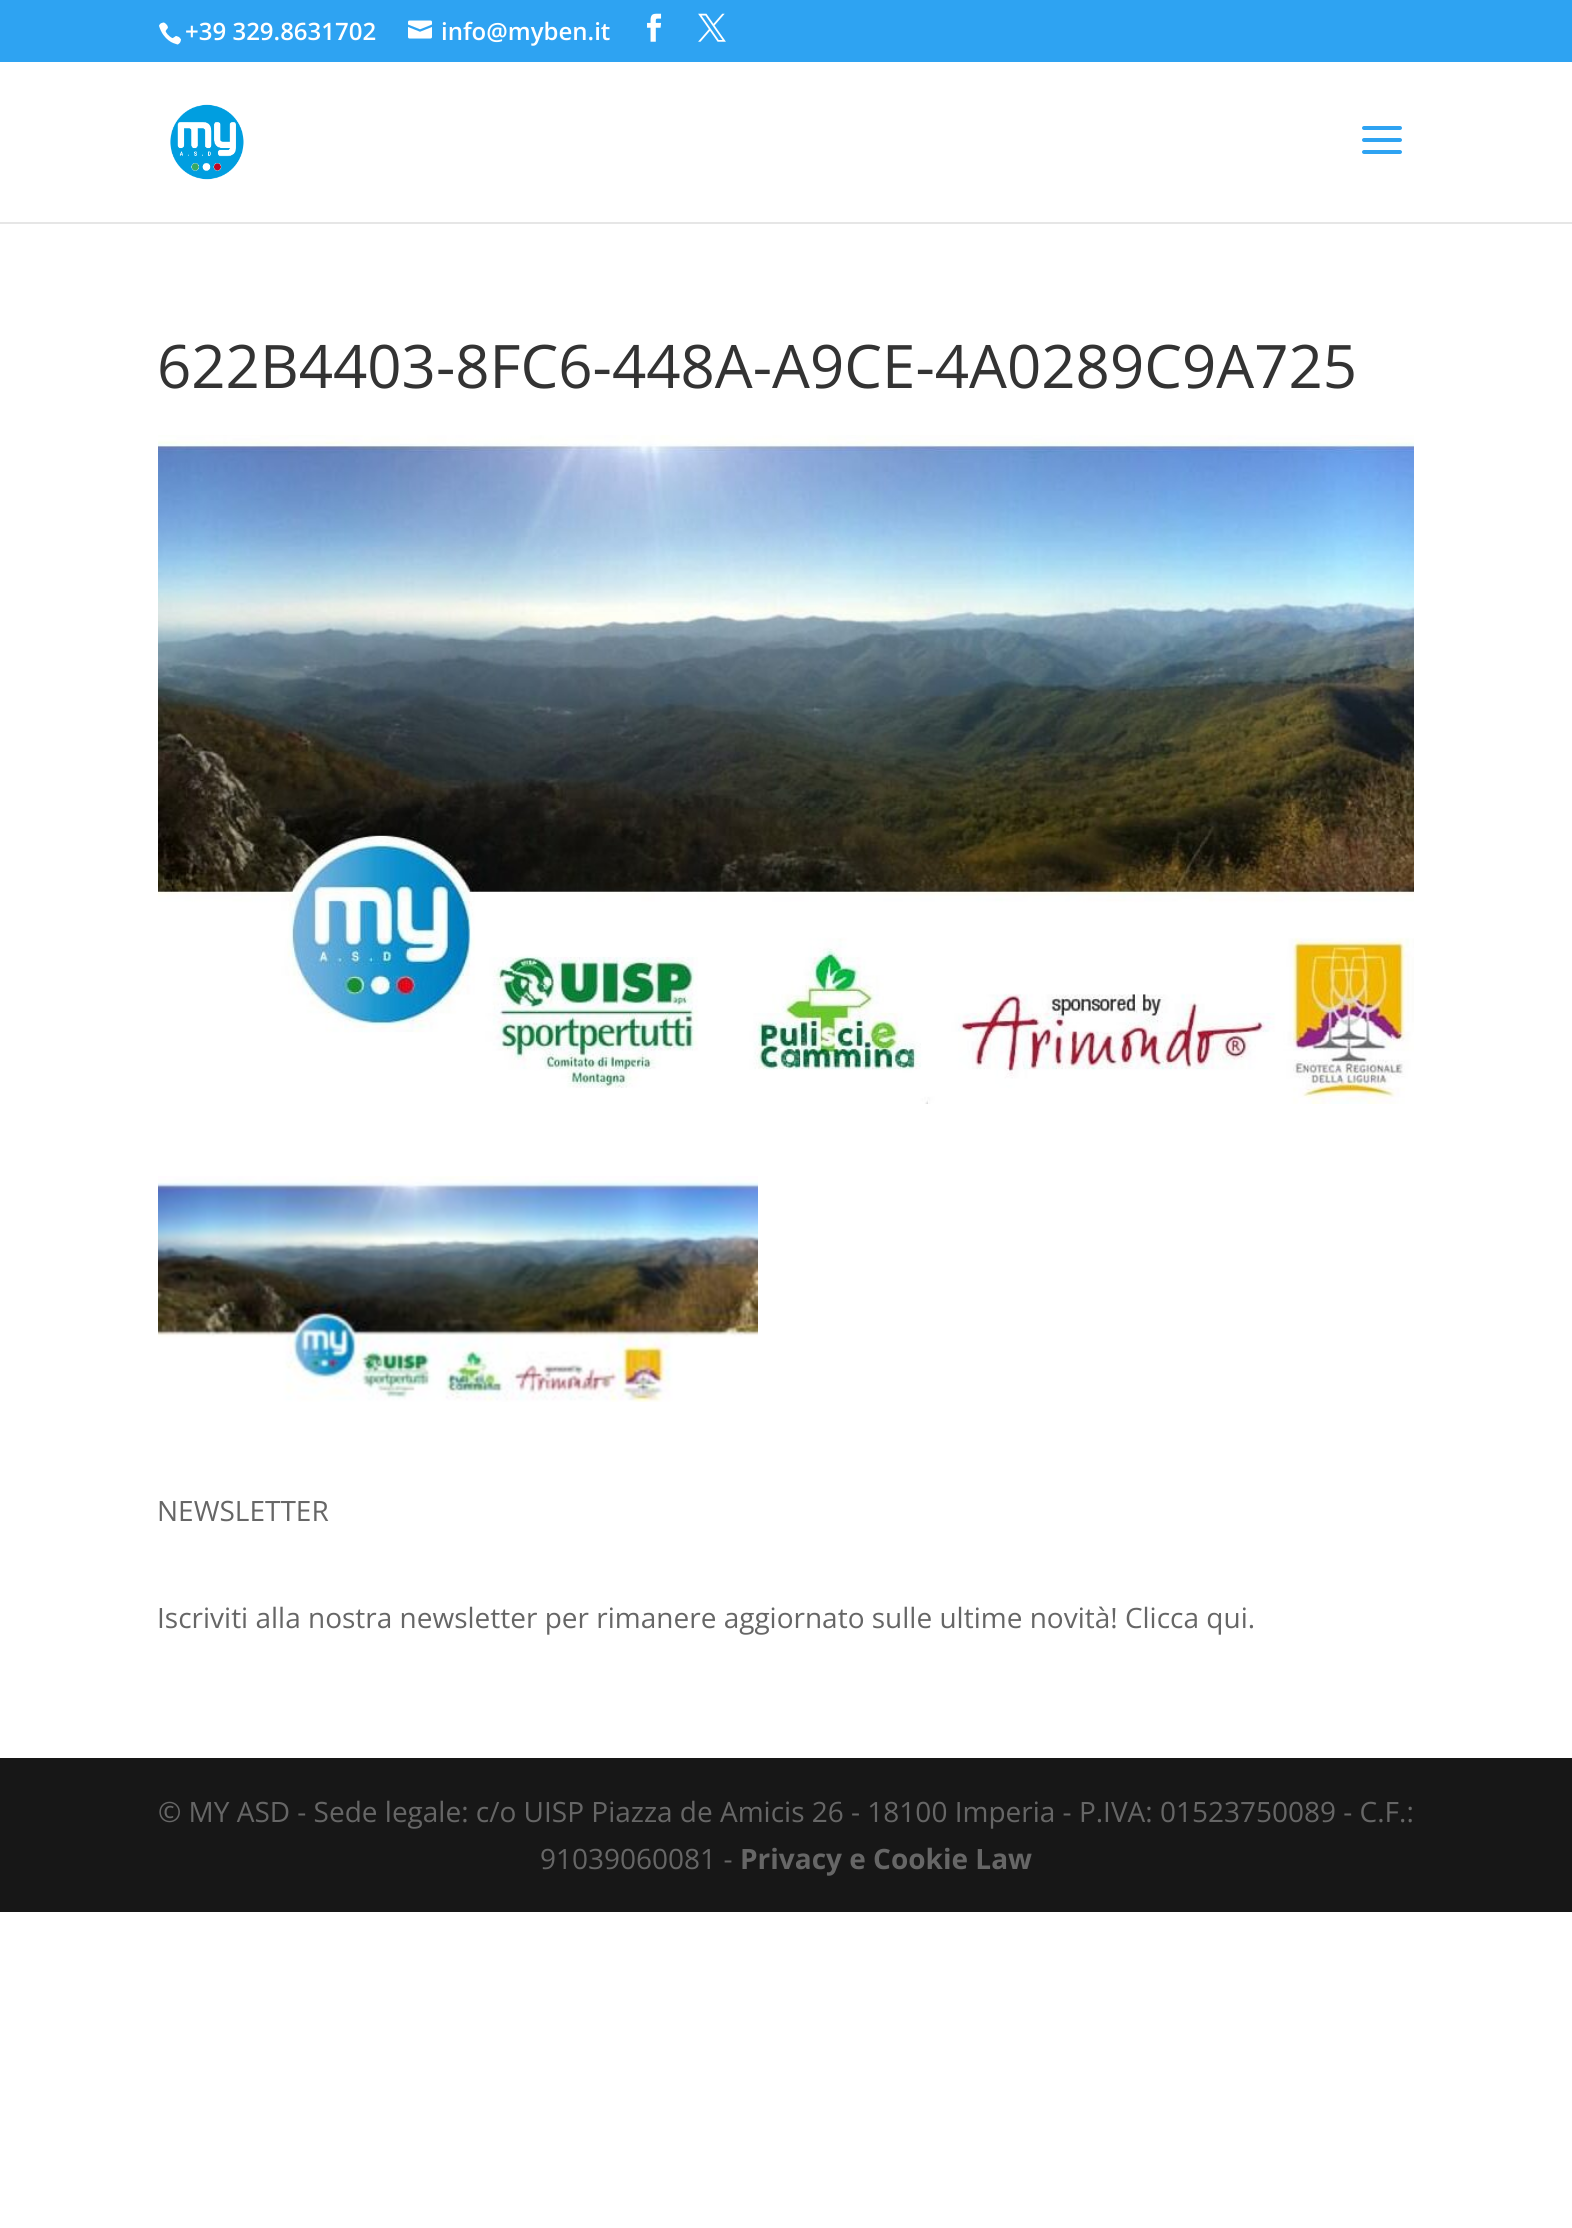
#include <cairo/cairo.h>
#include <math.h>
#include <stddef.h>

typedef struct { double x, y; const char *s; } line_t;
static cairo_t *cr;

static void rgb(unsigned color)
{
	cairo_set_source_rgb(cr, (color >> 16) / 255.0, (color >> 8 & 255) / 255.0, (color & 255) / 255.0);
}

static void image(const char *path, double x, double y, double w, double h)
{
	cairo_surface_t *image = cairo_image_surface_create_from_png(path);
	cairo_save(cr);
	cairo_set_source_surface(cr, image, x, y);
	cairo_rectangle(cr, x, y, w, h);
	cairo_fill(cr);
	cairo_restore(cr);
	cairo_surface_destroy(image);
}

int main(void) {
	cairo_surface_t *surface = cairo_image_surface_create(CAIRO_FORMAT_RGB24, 1572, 2228);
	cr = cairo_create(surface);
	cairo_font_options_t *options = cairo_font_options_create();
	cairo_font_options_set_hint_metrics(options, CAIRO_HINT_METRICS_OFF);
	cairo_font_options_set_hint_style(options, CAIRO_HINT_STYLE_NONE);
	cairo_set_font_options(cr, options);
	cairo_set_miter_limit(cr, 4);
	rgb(0xffffff);
	cairo_paint(cr);
	rgb(0x2ea3f2);
	cairo_rectangle(cr, 0, 0, 1572, 62);
	cairo_fill(cr);
	image("img/1.png", 159, 22, 22, 23);
	image("img/2.png", 408, 20, 24, 19);
	image("img/3.png", 647, 13, 15, 29);
	image("img/4.png", 698, 13, 28, 29);
	rgb(0xe6e6e6);
	cairo_rectangle(cr, 0, 222, 1572, 2);
	cairo_fill(cr);
	image("img/5.png", 170, 104, 74, 76);
	image("img/6.png", 1362, 126, 40, 28);
	image("img/7.png", 158, 435, 1256, 669);
	image("img/8.png", 158, 1176, 600, 226);
	rgb(0x171717);
	cairo_rectangle(cr, 0, 1758, 1572, 154);
	cairo_fill(cr);
	cairo_select_font_face(cr, "Open Sans SemiBold", CAIRO_FONT_SLANT_NORMAL, CAIRO_FONT_WEIGHT_NORMAL);
	cairo_set_font_size(cr, 24);
	rgb(0xffffff);
	cairo_move_to(cr, 185, 40);
	cairo_show_text(cr, "+39 329.8631702");
	cairo_move_to(cr, 441, 40);
	cairo_show_text(cr, "info@myben.it");
	cairo_select_font_face(cr, "Open Sans", CAIRO_FONT_SLANT_NORMAL, CAIRO_FONT_WEIGHT_NORMAL);
	cairo_set_font_size(cr, 60);
	rgb(0x333333);
	cairo_move_to(cr, 157, 388);
	cairo_show_text(cr, "622B4403-8FC6-448A-A9CE-4A0289C9A725");
	cairo_set_font_size(cr, 28);
	rgb(0x666666);
	{
		static const line_t items[] = {
			{157, 1521, "NEWSLETTER"},
			{157, 1628, "Iscriviti alla nostra newsletter per rimanere aggiornato sulle ultime novità! Clicca qui."},
			{158, 1822, "© MY ASD - Sede legale: c/o UISP Piazza de Amicis 26 - 18100 Imperia - P.IVA: 01523750089 - C.F.:"},
			{540, 1869, "91039060081 -"},
		};
		for (size_t i = 0; i < sizeof items / sizeof *items; i++) {
			cairo_move_to(cr, items[i].x, items[i].y);
			cairo_show_text(cr, items[i].s);
		}
	}
	cairo_select_font_face(cr, "Open Sans", CAIRO_FONT_SLANT_NORMAL, CAIRO_FONT_WEIGHT_BOLD);
	cairo_move_to(cr, 740, 1869);
	cairo_show_text(cr, "Privacy e Cookie Law");
	cairo_surface_write_to_png(surface, "page.png");
	cairo_font_options_destroy(options);
	cairo_destroy(cr);
	cairo_surface_destroy(surface);
	return 0;
}
